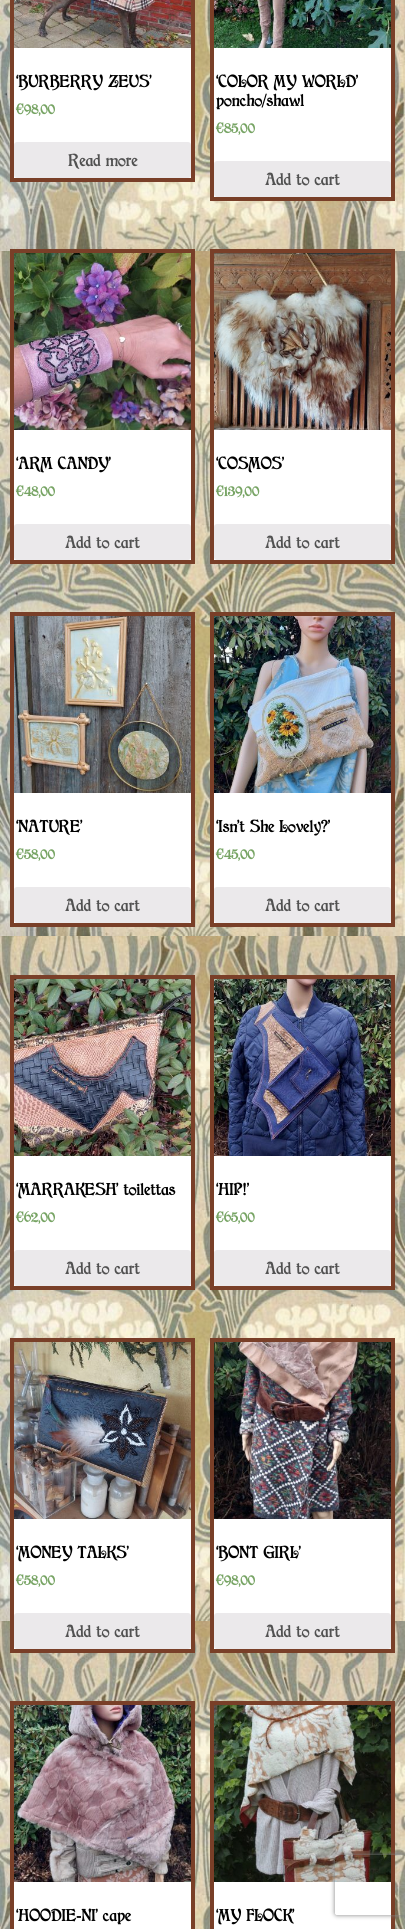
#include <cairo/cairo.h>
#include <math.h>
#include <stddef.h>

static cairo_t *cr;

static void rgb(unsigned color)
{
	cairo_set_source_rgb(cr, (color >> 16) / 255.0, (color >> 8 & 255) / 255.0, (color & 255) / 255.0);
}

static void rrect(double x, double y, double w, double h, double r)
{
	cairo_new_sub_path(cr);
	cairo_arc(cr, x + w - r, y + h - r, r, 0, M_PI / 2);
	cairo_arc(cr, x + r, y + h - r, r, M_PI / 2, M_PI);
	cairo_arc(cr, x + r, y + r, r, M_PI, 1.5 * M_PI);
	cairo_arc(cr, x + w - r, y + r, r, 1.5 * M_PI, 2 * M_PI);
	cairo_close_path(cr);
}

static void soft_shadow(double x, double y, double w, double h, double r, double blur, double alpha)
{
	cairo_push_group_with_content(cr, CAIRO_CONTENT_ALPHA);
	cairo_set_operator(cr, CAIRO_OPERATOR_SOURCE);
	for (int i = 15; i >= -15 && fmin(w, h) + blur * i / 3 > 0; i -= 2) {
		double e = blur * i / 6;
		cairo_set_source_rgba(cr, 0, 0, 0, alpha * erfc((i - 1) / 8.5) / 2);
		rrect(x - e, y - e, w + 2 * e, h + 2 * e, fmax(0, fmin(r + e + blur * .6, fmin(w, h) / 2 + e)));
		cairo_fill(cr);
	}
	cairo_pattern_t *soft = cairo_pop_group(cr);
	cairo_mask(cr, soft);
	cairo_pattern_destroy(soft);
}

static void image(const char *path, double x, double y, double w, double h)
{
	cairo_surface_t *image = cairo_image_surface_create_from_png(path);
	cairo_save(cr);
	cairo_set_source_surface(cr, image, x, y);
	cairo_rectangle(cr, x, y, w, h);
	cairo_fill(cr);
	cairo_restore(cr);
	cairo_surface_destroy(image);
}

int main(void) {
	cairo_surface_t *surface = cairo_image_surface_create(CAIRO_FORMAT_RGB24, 405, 1929);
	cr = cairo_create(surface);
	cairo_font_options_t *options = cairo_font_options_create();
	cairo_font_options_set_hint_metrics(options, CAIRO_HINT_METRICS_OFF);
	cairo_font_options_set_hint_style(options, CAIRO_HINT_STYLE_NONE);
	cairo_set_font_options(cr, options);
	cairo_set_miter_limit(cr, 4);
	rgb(0xffffff);
	cairo_paint(cr);
	image("img/1.png", 0, 0, 405, 1929);
	rgb(0xffffff);
	cairo_rectangle(cr, 14, 48, 177, 130);
	cairo_fill(cr);
	cairo_rectangle(cr, 12, -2, 181, 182);
	rgb(0x793f28);
	cairo_set_line_width(cr, 4);
	cairo_stroke(cr);
	image("img/2.png", 14, 0, 177, 48);
	rgb(0xebe9eb);
	rrect(14, 142, 177, 36, 3);
	cairo_fill(cr);
	rgb(0xffffff);
	cairo_rectangle(cr, 214, 48, 177, 149);
	cairo_fill(cr);
	cairo_rectangle(cr, 212, -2, 181, 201);
	rgb(0x793f28);
	cairo_stroke(cr);
	image("img/3.png", 214, 0, 177, 48);
	rgb(0xebe9eb);
	rrect(214, 161, 177, 36, 3);
	cairo_fill(cr);
	rgb(0xffffff);
	cairo_rectangle(cr, 14, 430, 177, 130);
	cairo_fill(cr);
	cairo_rectangle(cr, 12, 251, 181, 311);
	rgb(0x793f28);
	cairo_stroke(cr);
	image("img/4.png", 14, 253, 177, 177);
	rgb(0xebe9eb);
	rrect(14, 524, 177, 36, 3);
	cairo_fill(cr);
	rgb(0xffffff);
	cairo_rectangle(cr, 214, 430, 177, 130);
	cairo_fill(cr);
	cairo_rectangle(cr, 212, 251, 181, 311);
	rgb(0x793f28);
	cairo_stroke(cr);
	image("img/5.png", 214, 253, 177, 177);
	rgb(0xebe9eb);
	rrect(214, 524, 177, 36, 3);
	cairo_fill(cr);
	rgb(0xffffff);
	cairo_rectangle(cr, 14, 793, 177, 130);
	cairo_fill(cr);
	cairo_rectangle(cr, 12, 614, 181, 311);
	rgb(0x793f28);
	cairo_stroke(cr);
	image("img/6.png", 14, 616, 177, 177);
	rgb(0xebe9eb);
	rrect(14, 887, 177, 36, 3);
	cairo_fill(cr);
	rgb(0xffffff);
	cairo_rectangle(cr, 214, 793, 177, 130);
	cairo_fill(cr);
	cairo_rectangle(cr, 212, 614, 181, 311);
	rgb(0x793f28);
	cairo_stroke(cr);
	image("img/7.png", 214, 616, 177, 177);
	rgb(0xebe9eb);
	rrect(214, 887, 177, 36, 3);
	cairo_fill(cr);
	rgb(0xffffff);
	cairo_rectangle(cr, 14, 1156, 177, 130);
	cairo_fill(cr);
	cairo_rectangle(cr, 12, 977, 181, 311);
	rgb(0x793f28);
	cairo_stroke(cr);
	image("img/8.png", 14, 979, 177, 177);
	rgb(0xebe9eb);
	rrect(14, 1250, 177, 36, 3);
	cairo_fill(cr);
	rgb(0xffffff);
	cairo_rectangle(cr, 214, 1156, 177, 130);
	cairo_fill(cr);
	cairo_rectangle(cr, 212, 977, 181, 311);
	rgb(0x793f28);
	cairo_stroke(cr);
	image("img/9.png", 214, 979, 177, 177);
	rgb(0xebe9eb);
	rrect(214, 1250, 177, 36, 3);
	cairo_fill(cr);
	rgb(0xffffff);
	cairo_rectangle(cr, 14, 1519, 177, 130);
	cairo_fill(cr);
	cairo_rectangle(cr, 12, 1340, 181, 311);
	rgb(0x793f28);
	cairo_stroke(cr);
	image("img/10.png", 14, 1342, 177, 177);
	rgb(0xebe9eb);
	rrect(14, 1613, 177, 36, 3);
	cairo_fill(cr);
	rgb(0xffffff);
	cairo_rectangle(cr, 214, 1519, 177, 130);
	cairo_fill(cr);
	cairo_rectangle(cr, 212, 1340, 181, 311);
	rgb(0x793f28);
	cairo_stroke(cr);
	image("img/11.png", 214, 1342, 177, 177);
	rgb(0xebe9eb);
	rrect(214, 1613, 177, 36, 3);
	cairo_fill(cr);
	rgb(0xffffff);
	cairo_rectangle(cr, 14, 1882, 177, 47);
	cairo_fill(cr);
	cairo_rectangle(cr, 12, 1703, 181, 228);
	rgb(0x793f28);
	cairo_stroke(cr);
	image("img/12.png", 14, 1705, 177, 177);
	rgb(0xffffff);
	cairo_rectangle(cr, 214, 1882, 177, 47);
	cairo_fill(cr);
	cairo_rectangle(cr, 212, 1703, 181, 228);
	rgb(0x793f28);
	cairo_stroke(cr);
	image("img/13.png", 214, 1705, 177, 177);
	cairo_save(cr);
	cairo_set_fill_rule(cr, CAIRO_FILL_RULE_EVEN_ODD);
	cairo_new_path(cr);
	cairo_move_to(cr, 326, 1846);
	cairo_line_to(cr, 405, 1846);
	cairo_line_to(cr, 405, 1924);
	cairo_line_to(cr, 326, 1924);
	cairo_close_path(cr);
	cairo_move_to(cr, 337, 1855);
	cairo_line_to(cr, 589, 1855);
	cairo_curve_to(cr, 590, 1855, 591, 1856, 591, 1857);
	cairo_line_to(cr, 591, 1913);
	cairo_curve_to(cr, 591, 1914, 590, 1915, 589, 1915);
	cairo_line_to(cr, 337, 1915);
	cairo_curve_to(cr, 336, 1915, 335, 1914, 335, 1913);
	cairo_line_to(cr, 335, 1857);
	cairo_curve_to(cr, 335, 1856, 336, 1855, 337, 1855);
	cairo_close_path(cr);
	cairo_clip(cr);
	rgb(0x808080);
	soft_shadow(335, 1855, 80, 60, 2, 2.5, 1);
	cairo_restore(cr);
	cairo_select_font_face(cr, "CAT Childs", CAIRO_FONT_SLANT_NORMAL, CAIRO_FONT_WEIGHT_BOLD);
	cairo_set_font_size(cr, 16);
	rgb(0x000000);
	cairo_move_to(cr, 16, 87);
	cairo_show_text(cr, "‘BURBERRY ZEUS’");
	cairo_set_font_size(cr, 14);
	rgb(0x77a464);
	cairo_move_to(cr, 16, 114);
	cairo_show_text(cr, "€98,00");
	cairo_set_font_size(cr, 16);
	rgb(0x515151);
	cairo_move_to(cr, 68, 166);
	cairo_show_text(cr, "Read more");
	rgb(0x000000);
	cairo_move_to(cr, 216, 87);
	cairo_show_text(cr, "‘COLOR MY WORLD’");
	cairo_move_to(cr, 216, 106);
	cairo_show_text(cr, "poncho/shawl");
	cairo_set_font_size(cr, 14);
	rgb(0x77a464);
	cairo_move_to(cr, 216, 133);
	cairo_show_text(cr, "€85,00");
	cairo_set_font_size(cr, 16);
	rgb(0x515151);
	cairo_move_to(cr, 265, 185);
	cairo_show_text(cr, "Add to cart");
	rgb(0x000000);
	cairo_move_to(cr, 16, 469);
	cairo_show_text(cr, "‘ARM CANDY’");
	cairo_set_font_size(cr, 14);
	rgb(0x77a464);
	cairo_move_to(cr, 16, 496);
	cairo_show_text(cr, "€48,00");
	cairo_set_font_size(cr, 16);
	rgb(0x515151);
	cairo_move_to(cr, 65, 548);
	cairo_show_text(cr, "Add to cart");
	rgb(0x000000);
	cairo_move_to(cr, 216, 469);
	cairo_show_text(cr, "‘COSMOS’");
	cairo_set_font_size(cr, 14);
	rgb(0x77a464);
	cairo_move_to(cr, 216, 496);
	cairo_show_text(cr, "€139,00");
	cairo_set_font_size(cr, 16);
	rgb(0x515151);
	cairo_move_to(cr, 265, 548);
	cairo_show_text(cr, "Add to cart");
	rgb(0x000000);
	cairo_move_to(cr, 16, 832);
	cairo_show_text(cr, "‘NATURE’");
	cairo_set_font_size(cr, 14);
	rgb(0x77a464);
	cairo_move_to(cr, 16, 859);
	cairo_show_text(cr, "€58,00");
	cairo_set_font_size(cr, 16);
	rgb(0x515151);
	cairo_move_to(cr, 65, 911);
	cairo_show_text(cr, "Add to cart");
	rgb(0x000000);
	cairo_move_to(cr, 216, 832);
	cairo_show_text(cr, "‘Isn’t She Lovely?’");
	cairo_set_font_size(cr, 14);
	rgb(0x77a464);
	cairo_move_to(cr, 216, 859);
	cairo_show_text(cr, "€45,00");
	cairo_set_font_size(cr, 16);
	rgb(0x515151);
	cairo_move_to(cr, 265, 911);
	cairo_show_text(cr, "Add to cart");
	rgb(0x000000);
	cairo_move_to(cr, 16, 1195);
	cairo_show_text(cr, "‘MARRAKESH’ toilettas");
	cairo_set_font_size(cr, 14);
	rgb(0x77a464);
	cairo_move_to(cr, 16, 1222);
	cairo_show_text(cr, "€62,00");
	cairo_set_font_size(cr, 16);
	rgb(0x515151);
	cairo_move_to(cr, 65, 1274);
	cairo_show_text(cr, "Add to cart");
	rgb(0x000000);
	cairo_move_to(cr, 216, 1195);
	cairo_show_text(cr, "‘HIP!’");
	cairo_set_font_size(cr, 14);
	rgb(0x77a464);
	cairo_move_to(cr, 216, 1222);
	cairo_show_text(cr, "€65,00");
	cairo_set_font_size(cr, 16);
	rgb(0x515151);
	cairo_move_to(cr, 265, 1274);
	cairo_show_text(cr, "Add to cart");
	rgb(0x000000);
	cairo_move_to(cr, 16, 1558);
	cairo_show_text(cr, "‘MONEY TALKS’");
	cairo_set_font_size(cr, 14);
	rgb(0x77a464);
	cairo_move_to(cr, 16, 1585);
	cairo_show_text(cr, "€58,00");
	cairo_set_font_size(cr, 16);
	rgb(0x515151);
	cairo_move_to(cr, 65, 1637);
	cairo_show_text(cr, "Add to cart");
	rgb(0x000000);
	cairo_move_to(cr, 216, 1558);
	cairo_show_text(cr, "‘BONT GIRL’");
	cairo_set_font_size(cr, 14);
	rgb(0x77a464);
	cairo_move_to(cr, 216, 1585);
	cairo_show_text(cr, "€98,00");
	cairo_set_font_size(cr, 16);
	rgb(0x515151);
	cairo_move_to(cr, 265, 1637);
	cairo_show_text(cr, "Add to cart");
	rgb(0x000000);
	cairo_move_to(cr, 16, 1921);
	cairo_show_text(cr, "‘HOODIE-NI’ cape");
	cairo_move_to(cr, 216, 1921);
	cairo_show_text(cr, "‘MY FLOCK’");
	cairo_surface_write_to_png(surface, "page.png");
	cairo_font_options_destroy(options);
	cairo_destroy(cr);
	cairo_surface_destroy(surface);
	return 0;
}
